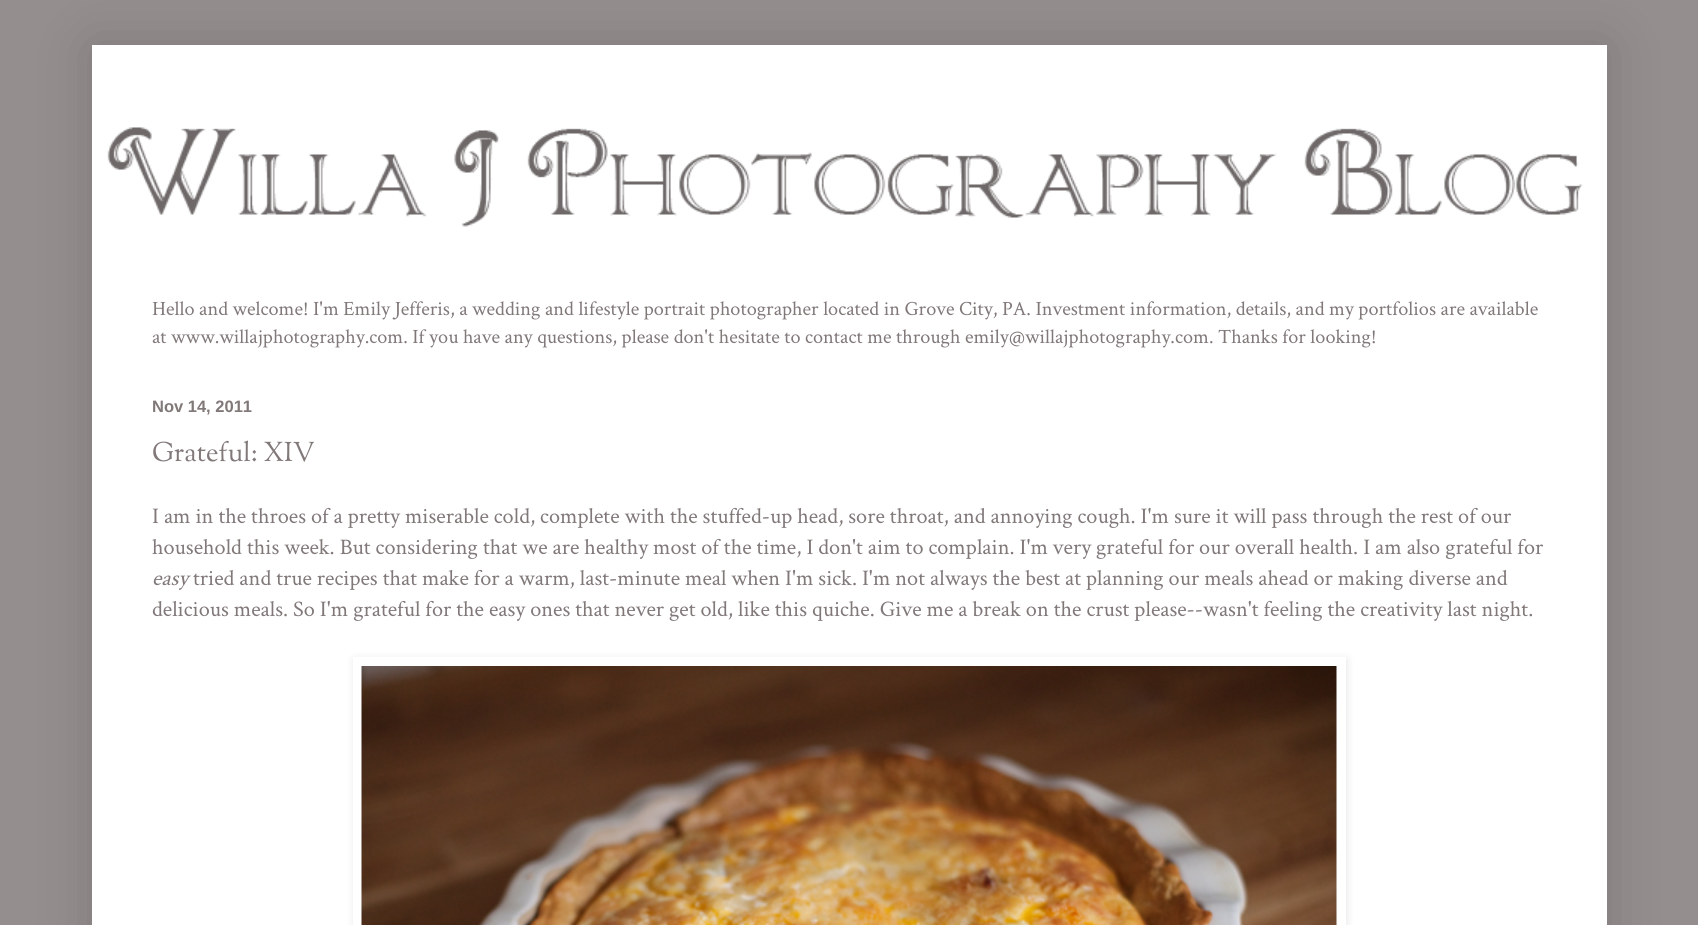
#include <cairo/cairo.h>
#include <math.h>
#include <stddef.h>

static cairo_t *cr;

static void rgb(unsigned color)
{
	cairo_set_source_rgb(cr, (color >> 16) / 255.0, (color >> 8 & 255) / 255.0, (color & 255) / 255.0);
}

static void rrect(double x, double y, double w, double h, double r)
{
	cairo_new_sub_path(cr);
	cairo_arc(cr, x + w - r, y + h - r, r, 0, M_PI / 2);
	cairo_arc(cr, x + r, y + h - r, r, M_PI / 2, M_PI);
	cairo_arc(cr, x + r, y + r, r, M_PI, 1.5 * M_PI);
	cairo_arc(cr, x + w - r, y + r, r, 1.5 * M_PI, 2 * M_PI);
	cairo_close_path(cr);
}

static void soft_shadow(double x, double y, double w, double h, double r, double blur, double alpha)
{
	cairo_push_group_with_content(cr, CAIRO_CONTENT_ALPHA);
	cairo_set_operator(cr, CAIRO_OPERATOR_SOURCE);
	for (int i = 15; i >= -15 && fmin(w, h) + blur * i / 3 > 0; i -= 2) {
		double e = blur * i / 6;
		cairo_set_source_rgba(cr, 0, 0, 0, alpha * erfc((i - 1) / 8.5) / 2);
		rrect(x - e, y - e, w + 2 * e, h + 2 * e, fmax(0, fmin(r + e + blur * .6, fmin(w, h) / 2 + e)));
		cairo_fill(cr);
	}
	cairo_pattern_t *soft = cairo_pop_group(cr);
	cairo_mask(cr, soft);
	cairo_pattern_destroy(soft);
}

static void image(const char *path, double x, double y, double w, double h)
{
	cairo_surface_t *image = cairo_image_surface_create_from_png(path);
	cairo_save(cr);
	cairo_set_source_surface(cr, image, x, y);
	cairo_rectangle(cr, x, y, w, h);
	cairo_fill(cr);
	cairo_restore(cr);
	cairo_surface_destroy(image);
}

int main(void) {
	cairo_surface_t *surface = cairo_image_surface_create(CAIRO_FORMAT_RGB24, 1698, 925);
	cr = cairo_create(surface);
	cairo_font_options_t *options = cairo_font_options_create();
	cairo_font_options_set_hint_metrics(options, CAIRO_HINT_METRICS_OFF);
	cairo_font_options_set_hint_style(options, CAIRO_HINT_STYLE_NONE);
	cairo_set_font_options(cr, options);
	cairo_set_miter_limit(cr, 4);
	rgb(0x948e8e);
	cairo_paint(cr);
	rgb(0x000000);
	soft_shadow(92, 45, 1515, 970, 0, 30, 0.15);
	rgb(0xffffff);
	cairo_rectangle(cr, 92, 45, 1515, 880);
	cairo_fill(cr);
	image("img/1.png", 107, 127, 1476, 100);
	cairo_save(cr);
	cairo_set_fill_rule(cr, CAIRO_FILL_RULE_EVEN_ODD);
	cairo_new_path(cr);
	cairo_move_to(cr, 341, 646);
	cairo_line_to(cr, 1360, 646);
	cairo_line_to(cr, 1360, 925);
	cairo_line_to(cr, 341, 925);
	cairo_close_path(cr);
	cairo_move_to(cr, 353, 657);
	cairo_line_to(cr, 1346, 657);
	cairo_line_to(cr, 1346, 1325);
	cairo_line_to(cr, 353, 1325);
	cairo_close_path(cr);
	cairo_clip(cr);
	rgb(0x000000);
	soft_shadow(354, 659, 993, 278, 0, 4, 0.1);
	cairo_restore(cr);
	image("img/2.png", 361, 666, 976, 259);
	cairo_select_font_face(cr, "Crimson Text", CAIRO_FONT_SLANT_NORMAL, CAIRO_FONT_WEIGHT_NORMAL);
	cairo_set_font_size(cr, 20.25);
	rgb(0x817878);
	cairo_move_to(cr, 152, 315);
	cairo_show_text(cr, "Hello and welcome! I'm Emily Jefferis, a wedding and lifestyle portrait photographer located in Grove City, PA. Investment information, details, and my portfolios are available");
	cairo_move_to(cr, 152, 343);
	cairo_show_text(cr, "at www.willajphotography.com. If you have any questions, please don't hesitate to contact me through emily@willajphotography.com. Thanks for looking!");
	cairo_select_font_face(cr, "Liberation Sans", CAIRO_FONT_SLANT_NORMAL, CAIRO_FONT_WEIGHT_BOLD);
	cairo_set_font_size(cr, 16.5);
	cairo_move_to(cr, 152, 412);
	cairo_show_text(cr, "Nov 14, 2011");
	cairo_select_font_face(cr, "Sorts Mill Goudy", CAIRO_FONT_SLANT_NORMAL, CAIRO_FONT_WEIGHT_NORMAL);
	cairo_set_font_size(cr, 27);
	cairo_move_to(cr, 152, 461);
	cairo_show_text(cr, "Grateful: XIV");
	cairo_select_font_face(cr, "Crimson Text", CAIRO_FONT_SLANT_NORMAL, CAIRO_FONT_WEIGHT_NORMAL);
	cairo_set_font_size(cr, 22.27);
	cairo_move_to(cr, 152, 523);
	cairo_show_text(cr, "I am in the throes of a pretty miserable cold, complete with the stuffed-up head, sore throat, and annoying cough. I'm sure it will pass through the rest of our");
	cairo_move_to(cr, 152, 554);
	cairo_show_text(cr, "household this week. But considering that we are healthy most of the time, I don't aim to complain. I'm very grateful for our overall health. I am also grateful for");
	cairo_select_font_face(cr, "Crimson Text", CAIRO_FONT_SLANT_ITALIC, CAIRO_FONT_WEIGHT_NORMAL);
	cairo_move_to(cr, 152, 585);
	cairo_show_text(cr, "easy");
	cairo_select_font_face(cr, "Crimson Text", CAIRO_FONT_SLANT_NORMAL, CAIRO_FONT_WEIGHT_NORMAL);
	cairo_move_to(cr, 193, 585);
	cairo_show_text(cr, "tried and true recipes that make for a warm, last-minute meal when I'm sick. I'm not always the best at planning our meals ahead or making diverse and");
	cairo_move_to(cr, 152, 616);
	cairo_show_text(cr, "delicious meals. So I'm grateful for the easy ones that never get old, like this quiche. Give me a break on the crust please--wasn't feeling the creativity last night.");
	cairo_surface_write_to_png(surface, "page.png");
	cairo_font_options_destroy(options);
	cairo_destroy(cr);
	cairo_surface_destroy(surface);
	return 0;
}
